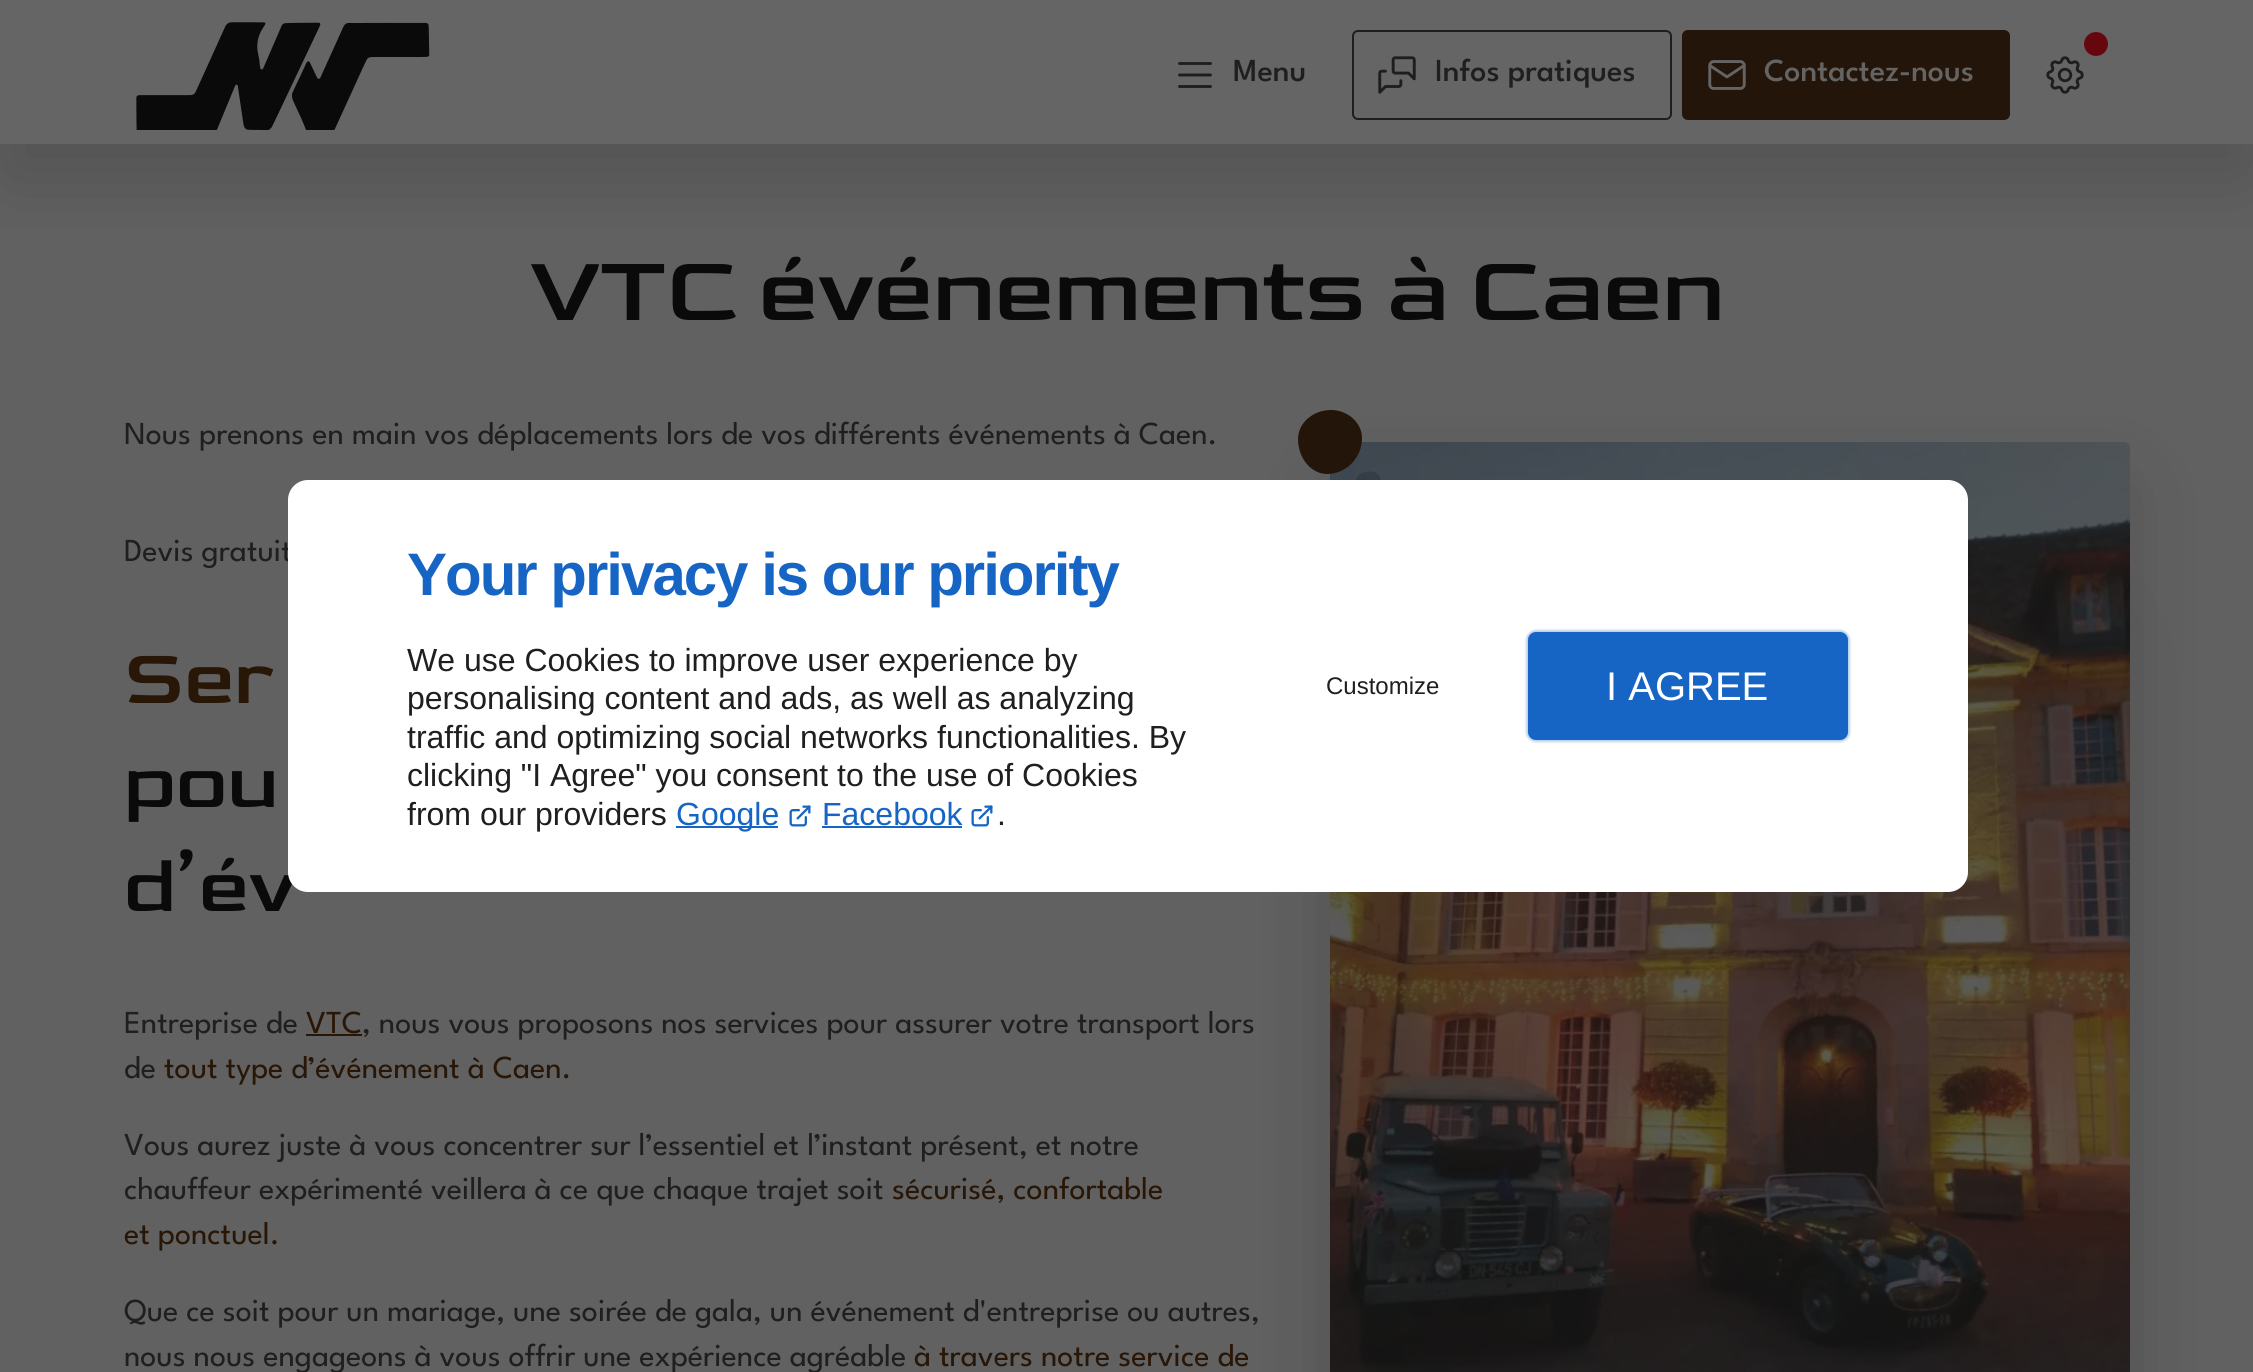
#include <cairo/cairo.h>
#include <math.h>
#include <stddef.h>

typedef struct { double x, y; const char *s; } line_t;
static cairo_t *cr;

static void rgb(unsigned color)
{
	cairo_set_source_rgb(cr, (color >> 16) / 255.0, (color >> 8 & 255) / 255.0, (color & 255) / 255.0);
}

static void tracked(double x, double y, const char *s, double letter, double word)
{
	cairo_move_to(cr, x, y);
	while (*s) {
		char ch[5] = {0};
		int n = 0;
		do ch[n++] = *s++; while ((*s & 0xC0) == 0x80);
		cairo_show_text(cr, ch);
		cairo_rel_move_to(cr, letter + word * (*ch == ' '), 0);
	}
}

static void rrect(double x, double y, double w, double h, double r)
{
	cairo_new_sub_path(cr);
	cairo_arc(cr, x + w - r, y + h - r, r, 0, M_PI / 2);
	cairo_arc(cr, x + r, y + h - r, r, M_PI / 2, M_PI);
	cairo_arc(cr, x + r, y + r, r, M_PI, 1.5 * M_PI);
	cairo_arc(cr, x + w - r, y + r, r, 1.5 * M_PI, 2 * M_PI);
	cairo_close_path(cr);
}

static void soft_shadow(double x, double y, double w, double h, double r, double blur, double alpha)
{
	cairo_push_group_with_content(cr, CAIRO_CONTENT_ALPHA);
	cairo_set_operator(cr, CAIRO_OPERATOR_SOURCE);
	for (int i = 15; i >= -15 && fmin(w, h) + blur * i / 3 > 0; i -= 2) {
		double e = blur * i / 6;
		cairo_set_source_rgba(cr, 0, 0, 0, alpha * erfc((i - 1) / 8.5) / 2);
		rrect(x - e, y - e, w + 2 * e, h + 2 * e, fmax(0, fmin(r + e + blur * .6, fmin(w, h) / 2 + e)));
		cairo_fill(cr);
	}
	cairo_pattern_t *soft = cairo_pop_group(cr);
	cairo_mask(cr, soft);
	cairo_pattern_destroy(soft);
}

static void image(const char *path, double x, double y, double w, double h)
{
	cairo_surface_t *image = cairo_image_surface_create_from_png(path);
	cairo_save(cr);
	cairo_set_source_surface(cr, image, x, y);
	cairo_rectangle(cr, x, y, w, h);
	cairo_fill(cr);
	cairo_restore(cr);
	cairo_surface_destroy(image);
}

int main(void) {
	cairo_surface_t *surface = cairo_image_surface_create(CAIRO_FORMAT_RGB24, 2253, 1372);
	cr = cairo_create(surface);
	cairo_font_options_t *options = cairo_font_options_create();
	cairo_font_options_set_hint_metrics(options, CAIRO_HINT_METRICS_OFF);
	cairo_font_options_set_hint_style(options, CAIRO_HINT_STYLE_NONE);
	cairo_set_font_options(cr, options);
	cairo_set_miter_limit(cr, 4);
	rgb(0x656565);
	cairo_paint(cr);
	rgb(0x616161);
	cairo_rectangle(cr, 0, 144, 2253, 1228);
	cairo_fill(cr);
	cairo_save(cr);
	cairo_rectangle(cr, 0, 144, 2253, 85);
	cairo_clip(cr);
	rgb(0x141414);
	soft_shadow(6, 46, 2242, 132, 0, 40, 0.2);
	cairo_restore(cr);
	image("img/1.png", 136, 22, 294, 108);
	cairo_new_path(cr);
	cairo_move_to(cr, 1179.5, 63.5);
	cairo_line_to(cr, 1210.5, 63.5);
	cairo_move_to(cr, 1179.5, 75);
	cairo_line_to(cr, 1210.5, 75);
	cairo_move_to(cr, 1179.5, 86.5);
	cairo_line_to(cr, 1210.5, 86.5);
	rgb(0x1f1e1e);
	cairo_set_line_width(cr, 2.9);
	cairo_set_line_cap(cr, CAIRO_LINE_CAP_ROUND);
	cairo_set_line_join(cr, CAIRO_LINE_JOIN_ROUND);
	cairo_stroke(cr);
	rrect(1353, 31, 318, 88, 5);
	cairo_set_line_width(cr, 2);
	cairo_set_line_cap(cr, CAIRO_LINE_CAP_BUTT);
	cairo_set_line_join(cr, CAIRO_LINE_JOIN_MITER);
	cairo_stroke(cr);
	image("img/2.png", 1378, 56, 38, 38);
	rgb(0x23150a);
	rrect(1682, 30, 328, 90, 6);
	cairo_fill(cr);
	rrect(1683, 31, 326, 88, 5);
	cairo_set_source_rgba(cr, 0.137, 0.082, 0.039, 0.15);
	cairo_stroke(cr);
	image("img/3.png", 1708, 60, 38, 30);
	rgb(0x66070f);
	cairo_arc(cr, 2096, 44, 12, 0, 2 * M_PI);
	cairo_fill(cr);
	image("img/4.png", 2046, 56, 38, 38);
	rgb(0x281607);
	cairo_rectangle(cr, 306, 1034, 56, 2);
	cairo_fill(cr);
	rgb(0x141414);
	soft_shadow(1410, 642, 640, 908, 0, 70, 0.2);
	soft_shadow(1336, 488, 788, 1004, 0, 40, 0.2);
	image("img/5.png", 1330, 442, 800, 930);
	cairo_set_source_rgba(cr, 0.259, 0.255, 0.255, 0.3);
	rrect(1330, 442, 800, 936, 6);
	cairo_fill(cr);
	cairo_set_source_rgba(cr, 0.078, 0.078, 0.078, 0.2);
	cairo_new_path(cr);
	cairo_move_to(cr, 1369.5, 471.5);
	cairo_curve_to(cr, 1388, 471.5, 1380.5, 495.5, 1365, 495.5);
	cairo_curve_to(cr, 1358.5, 495.5, 1355, 483.5, 1356.5, 478.5);
	cairo_curve_to(cr, 1358, 473.5, 1365, 471.5, 1369.5, 471.5);
	cairo_close_path(cr);
	cairo_fill(cr);
	rgb(0x23150a);
	cairo_new_path(cr);
	cairo_move_to(cr, 1331, 410);
	cairo_curve_to(cr, 1348, 410, 1362, 423, 1362, 438);
	cairo_curve_to(cr, 1362, 458, 1346, 474, 1327, 474);
	cairo_curve_to(cr, 1311, 474, 1298, 458, 1298, 439);
	cairo_curve_to(cr, 1298, 423, 1313, 410, 1331, 410);
	cairo_close_path(cr);
	cairo_fill(cr);
	cairo_select_font_face(cr, "League Spartan Medium", CAIRO_FONT_SLANT_NORMAL, CAIRO_FONT_WEIGHT_NORMAL);
	cairo_set_font_size(cr, 32);
	rgb(0x1f1f1f);
	cairo_move_to(cr, 1233, 81);
	cairo_show_text(cr, "Menu");
	cairo_move_to(cr, 1435, 81);
	cairo_show_text(cr, "Infos pratiques");
	rgb(0x656463);
	cairo_move_to(cr, 1764, 81);
	cairo_show_text(cr, "Contactez-nous");
	cairo_select_font_face(cr, "Goldman", CAIRO_FONT_SLANT_NORMAL, CAIRO_FONT_WEIGHT_NORMAL);
	cairo_set_font_size(cr, 95.1);
	rgb(0x0a0a0a);
	cairo_move_to(cr, 530, 320);
	cairo_show_text(cr, "VTC événements à Caen");
	cairo_select_font_face(cr, "League Spartan", CAIRO_FONT_SLANT_NORMAL, CAIRO_FONT_WEIGHT_NORMAL);
	cairo_set_font_size(cr, 32);
	rgb(0x1f1f1f);
	cairo_move_to(cr, 124, 444);
	cairo_show_text(cr, "Nous prenons en main vos déplacements lors de vos différents événements à Caen.");
	cairo_move_to(cr, 124, 561);
	cairo_show_text(cr, "Devis gratuit");
	cairo_select_font_face(cr, "Goldman", CAIRO_FONT_SLANT_NORMAL, CAIRO_FONT_WEIGHT_NORMAL);
	cairo_set_font_size(cr, 80);
	rgb(0x281607);
	cairo_move_to(cr, 124, 703);
	cairo_show_text(cr, "Ser");
	rgb(0x0a0a0a);
	cairo_move_to(cr, 124, 807);
	cairo_show_text(cr, "pou");
	cairo_move_to(cr, 124, 911);
	cairo_show_text(cr, "d’év");
	cairo_select_font_face(cr, "League Spartan", CAIRO_FONT_SLANT_NORMAL, CAIRO_FONT_WEIGHT_NORMAL);
	cairo_set_font_size(cr, 32);
	rgb(0x1f1f1f);
	cairo_move_to(cr, 124, 1033);
	cairo_show_text(cr, "Entreprise de");
	rgb(0x281607);
	cairo_move_to(cr, 306, 1033);
	cairo_show_text(cr, "VTC");
	rgb(0x1f1f1f);
	cairo_move_to(cr, 362, 1033);
	cairo_show_text(cr, ", nous vous proposons nos services pour assurer votre transport lors");
	cairo_move_to(cr, 124, 1078);
	cairo_show_text(cr, "de");
	rgb(0x281607);
	cairo_move_to(cr, 164, 1078);
	cairo_show_text(cr, "tout type d’événement à Caen.");
	rgb(0x1f1f1f);
	cairo_move_to(cr, 124, 1155);
	cairo_show_text(cr, "Vous aurez juste à vous concentrer sur l’essentiel et l’instant présent, et notre");
	cairo_move_to(cr, 124, 1199);
	cairo_show_text(cr, "chauffeur expérimenté veillera à ce que chaque trajet soit");
	rgb(0x281607);
	cairo_move_to(cr, 892, 1199);
	cairo_show_text(cr, "sécurisé, confortable");
	cairo_move_to(cr, 124, 1244);
	cairo_show_text(cr, "et ponctuel.");
	rgb(0x1f1f1f);
	cairo_move_to(cr, 124, 1321);
	cairo_show_text(cr, "Que ce soit pour un mariage, une soirée de gala, un événement d'entreprise ou autres,");
	cairo_move_to(cr, 124, 1366);
	cairo_show_text(cr, "nous nous engageons à vous offrir une expérience agréable");
	rgb(0x281607);
	cairo_move_to(cr, 914, 1366);
	cairo_show_text(cr, "à travers notre service de");
	rgb(0xffffff);
	rrect(288, 480, 1680, 412, 20);
	cairo_fill(cr);
	cairo_select_font_face(cr, "Liberation Sans", CAIRO_FONT_SLANT_NORMAL, CAIRO_FONT_WEIGHT_BOLD);
	cairo_set_font_size(cr, 60);
	rgb(0x1665c4);
	tracked(407, 595, "Your privacy is our priority", -2, 0);
	cairo_select_font_face(cr, "Liberation Sans", CAIRO_FONT_SLANT_NORMAL, CAIRO_FONT_WEIGHT_NORMAL);
	cairo_set_font_size(cr, 32);
	rgb(0x1f1f1f);
	{
		static const line_t items[] = {
			{407, 671, "We use Cookies to improve user experience by"},
			{407, 709, "personalising content and ads, as well as analyzing"},
			{407, 748, "traffic and optimizing social networks functionalities. By"},
			{407, 786, "clicking \"I Agree\" you consent to the use of Cookies"},
			{407, 825, "from our providers"},
		};
		for (size_t i = 0; i < sizeof items / sizeof *items; i++) {
			cairo_move_to(cr, items[i].x, items[i].y);
			cairo_show_text(cr, items[i].s);
		}
	}
	rgb(0x1665c4);
	cairo_rectangle(cr, 676, 826, 102, 2);
	cairo_fill(cr);
	cairo_move_to(cr, 676, 825);
	cairo_show_text(cr, "Google");
	image("img/6.png", 789, 805, 22, 22);
	cairo_move_to(cr, 822, 825);
	cairo_show_text(cr, "Facebook");
	cairo_rectangle(cr, 822, 826, 140, 2);
	cairo_fill(cr);
	image("img/6.png", 971, 805, 22, 22);
	rgb(0x1f1f1f);
	cairo_move_to(cr, 997, 825);
	cairo_show_text(cr, ".");
	cairo_set_font_size(cr, 24);
	cairo_move_to(cr, 1326, 694);
	cairo_show_text(cr, "Customize");
	rgb(0x1665c4);
	soft_shadow(1526, 630, 324, 112, 10, 1, 0.3);
	rgb(0x1665c4);
	rrect(1530, 634, 316, 104, 6);
	cairo_fill_preserve(cr);
	cairo_set_line_width(cr, 4);
	cairo_stroke(cr);
	cairo_set_font_size(cr, 40);
	rgb(0xffffff);
	cairo_move_to(cr, 1606, 700);
	cairo_show_text(cr, "I AGREE");
	cairo_surface_write_to_png(surface, "page.png");
	cairo_font_options_destroy(options);
	cairo_destroy(cr);
	cairo_surface_destroy(surface);
	return 0;
}
